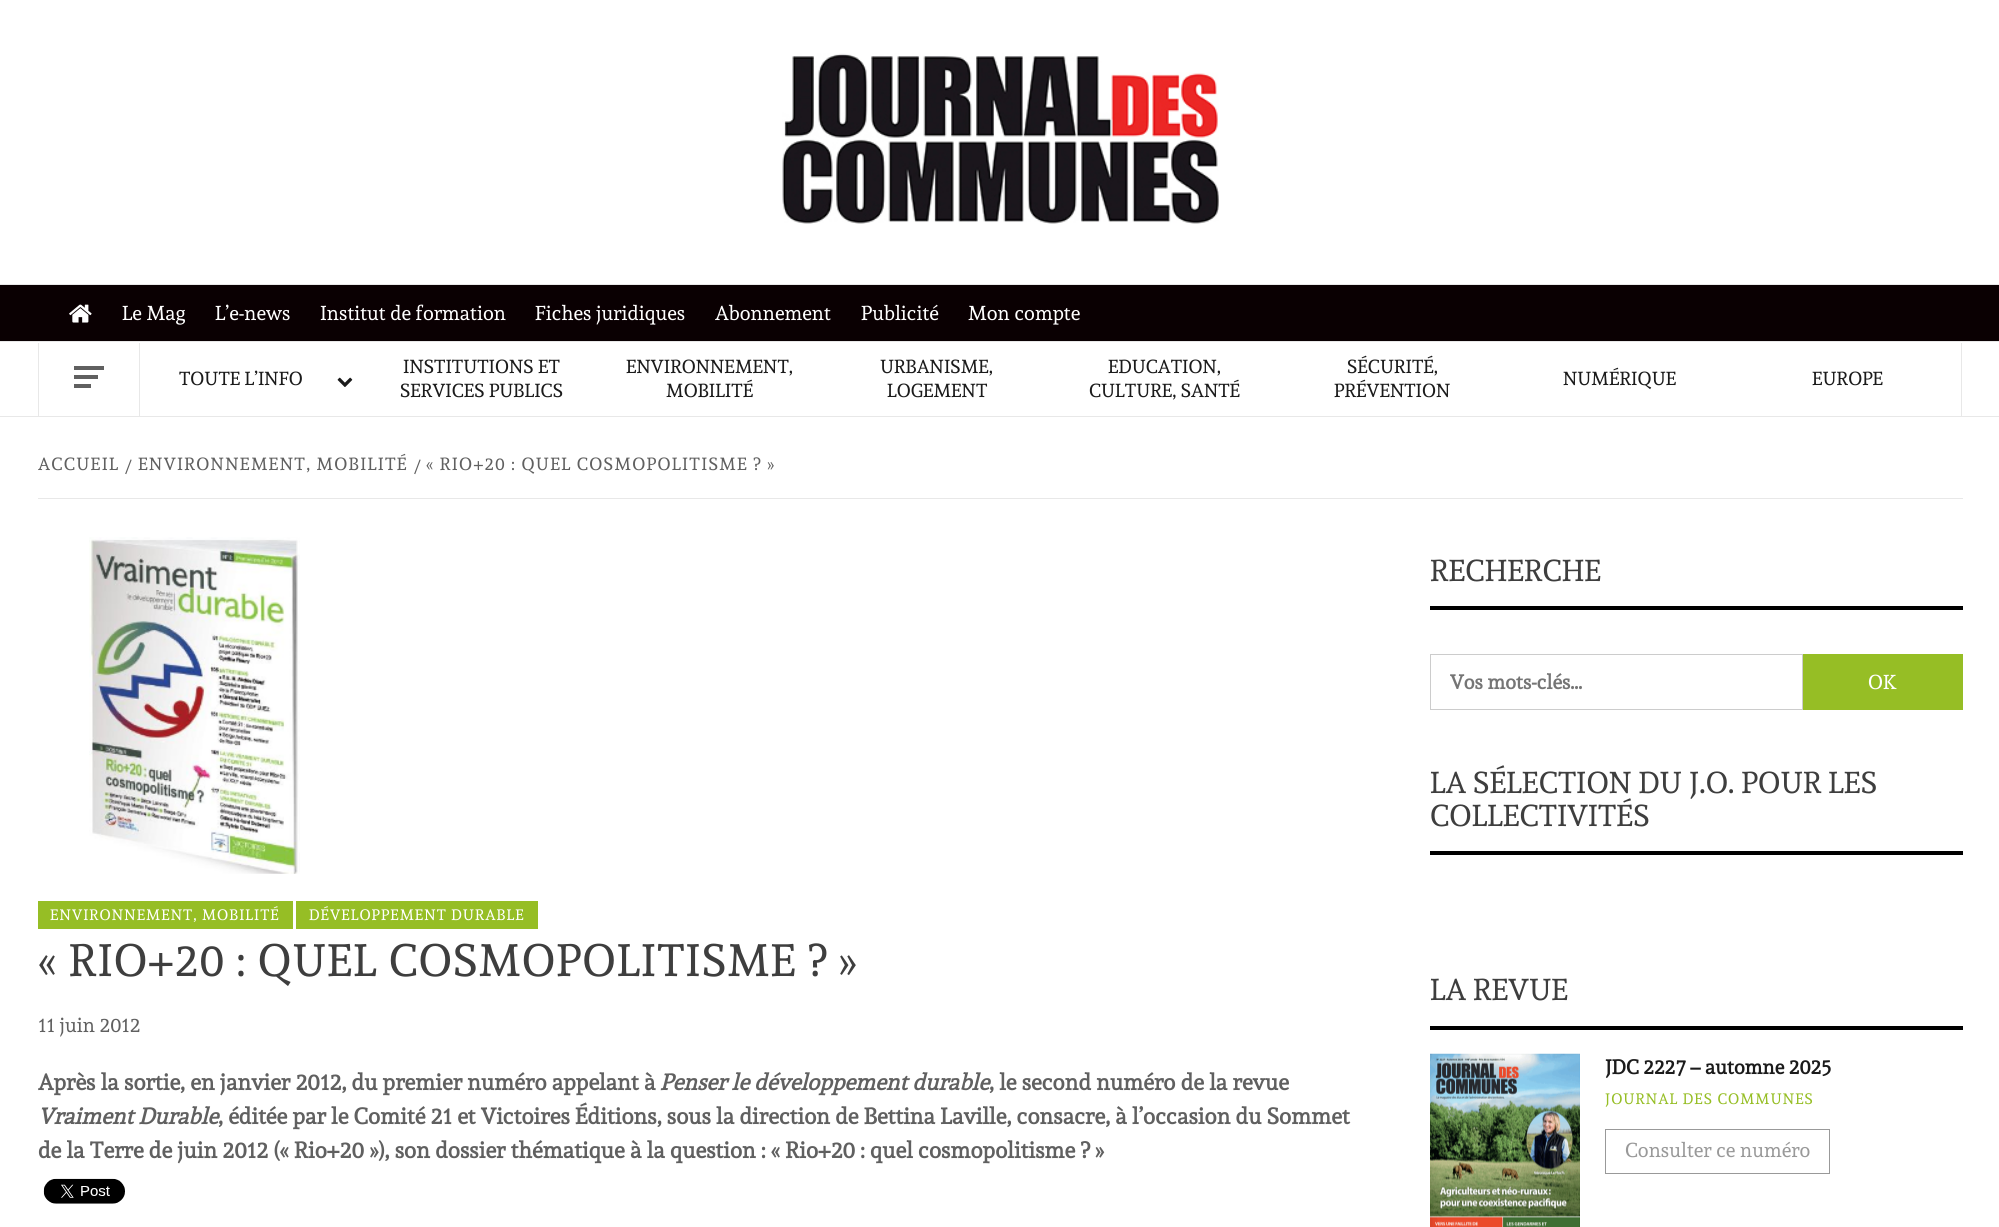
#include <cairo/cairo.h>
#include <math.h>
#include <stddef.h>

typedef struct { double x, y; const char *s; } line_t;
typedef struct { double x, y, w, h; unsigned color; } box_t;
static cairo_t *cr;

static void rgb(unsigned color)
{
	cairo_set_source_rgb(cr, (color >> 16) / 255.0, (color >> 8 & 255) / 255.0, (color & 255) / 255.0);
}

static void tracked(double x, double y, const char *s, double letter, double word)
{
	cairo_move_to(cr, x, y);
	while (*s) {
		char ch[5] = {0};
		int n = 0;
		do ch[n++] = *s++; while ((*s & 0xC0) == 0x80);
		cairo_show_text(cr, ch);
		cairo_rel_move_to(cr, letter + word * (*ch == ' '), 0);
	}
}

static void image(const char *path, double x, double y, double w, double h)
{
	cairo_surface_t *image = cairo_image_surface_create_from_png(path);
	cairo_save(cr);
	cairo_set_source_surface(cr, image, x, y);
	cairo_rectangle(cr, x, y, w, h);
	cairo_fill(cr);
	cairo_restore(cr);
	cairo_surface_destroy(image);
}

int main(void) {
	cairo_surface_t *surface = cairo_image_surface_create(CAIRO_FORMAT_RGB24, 1999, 1227);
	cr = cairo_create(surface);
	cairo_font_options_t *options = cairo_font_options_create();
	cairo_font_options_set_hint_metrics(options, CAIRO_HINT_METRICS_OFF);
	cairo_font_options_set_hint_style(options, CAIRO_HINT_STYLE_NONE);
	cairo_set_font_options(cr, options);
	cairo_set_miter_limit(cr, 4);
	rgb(0xffffff);
	cairo_paint(cr);
	image("img/1.png", 782, 53, 437, 171);
	rgb(0x0a0002);
	cairo_rectangle(cr, 0, 285, 1999, 56);
	cairo_fill(cr);
	rgb(0xe8e8e8);
	cairo_rectangle(cr, 0, 284, 1999, 1);
	cairo_fill(cr);
	image("img/2.png", 69, 304, 23, 19);
	{
		static const box_t items[] = {
			{0, 341, 1999, 1, 0xe8e8e8},
			{0, 416, 1999, 1, 0xe8e8e8},
			{1961, 343, 1, 73, 0xe8e8e8},
			{38, 343, 1, 73, 0xe8e8e8},
			{74, 366, 30, 4, 0x606060},
			{74, 375, 24, 4, 0x606060},
			{74, 384, 17, 4, 0x606060},
			{139, 343, 1, 73, 0xe8e8e8},
		};
		for (size_t i = 0; i < sizeof items / sizeof *items; i++) {
			rgb(items[i].color);
			cairo_rectangle(cr, items[i].x, items[i].y, items[i].w, items[i].h);
			cairo_fill(cr);
		}
	}
	image("img/3.png", 337, 377, 16, 10);
	cairo_rectangle(cr, 38, 498, 1925, 1);
	cairo_fill(cr);
	image("img/4.png", 89, 537, 211, 337);
	rgb(0x96be25);
	cairo_rectangle(cr, 38, 901, 255, 28);
	cairo_fill(cr);
	cairo_rectangle(cr, 296, 901, 242, 28);
	cairo_fill(cr);
	image("img/5.png", 43, 1178, 82, 26);
	rgb(0x000000);
	cairo_rectangle(cr, 1430, 606, 533, 4);
	cairo_fill(cr);
	cairo_rectangle(cr, 1430.5, 654.5, 372, 55);
	rgb(0xcccccc);
	cairo_set_line_width(cr, 1);
	cairo_stroke(cr);
	{
		static const box_t items[] = {
			{1803, 654, 160, 56, 0x96be25},
			{1430, 851, 533, 4, 0x000000},
			{1430, 1026, 533, 4, 0x000000},
		};
		for (size_t i = 0; i < sizeof items / sizeof *items; i++) {
			rgb(items[i].color);
			cairo_rectangle(cr, items[i].x, items[i].y, items[i].w, items[i].h);
			cairo_fill(cr);
		}
	}
	image("img/6.png", 1430, 1053, 150, 174);
	cairo_rectangle(cr, 1605.5, 1129.5, 224, 44);
	rgb(0x999999);
	cairo_stroke(cr);
	cairo_select_font_face(cr, "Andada", CAIRO_FONT_SLANT_NORMAL, CAIRO_FONT_WEIGHT_NORMAL);
	cairo_set_font_size(cr, 20);
	rgb(0xffffff);
	{
		static const line_t items[] = {
			{122, 320, "Le Mag"},
			{215, 320, "L’e-news"},
			{320, 320, "Institut de formation"},
			{535, 320, "Fiches juridiques"},
			{715, 320, "Abonnement"},
			{861, 320, "Publicité"},
			{968, 320, "Mon compte"},
		};
		for (size_t i = 0; i < sizeof items / sizeof *items; i++) {
			cairo_move_to(cr, items[i].x, items[i].y);
			cairo_show_text(cr, items[i].s);
		}
	}
	cairo_set_font_size(cr, 18.75);
	rgb(0x1b1b1b);
	{
		static const line_t items[] = {
			{179, 385, "TOUTE L’INFO"},
			{403, 373, "INSTITUTIONS ET"},
			{400, 397, "SERVICES PUBLICS"},
			{626, 373, "ENVIRONNEMENT,"},
			{666, 397, "MOBILITÉ"},
			{880, 373, "URBANISME,"},
			{887, 397, "LOGEMENT"},
			{1108, 373, "EDUCATION,"},
			{1089, 397, "CULTURE, SANTÉ"},
			{1347, 373, "SÉCURITÉ,"},
			{1334, 397, "PRÉVENTION"},
			{1563, 385, "NUMÉRIQUE"},
			{1812, 385, "EUROPE"},
		};
		for (size_t i = 0; i < sizeof items / sizeof *items; i++) {
			cairo_move_to(cr, items[i].x, items[i].y);
			cairo_show_text(cr, items[i].s);
		}
	}
	cairo_set_font_size(cr, 17.5);
	rgb(0x606060);
	{
		static const line_t items[] = {
			{38, 470, "ACCUEIL"},
			{125, 473, "/"},
			{138, 470, "ENVIRONNEMENT, MOBILITÉ"},
			{414, 473, "/"},
			{426, 470, "« RIO+20 : QUEL COSMOPOLITISME ? »"},
		};
		for (size_t i = 0; i < sizeof items / sizeof *items; i++) {
			tracked(items[i].x, items[i].y, items[i].s, 1.25, 0);
		}
	}
	cairo_set_font_size(cr, 15);
	rgb(0xffffff);
	tracked(50, 920, "ENVIRONNEMENT, MOBILITÉ", 1, 0);
	tracked(309, 920, "DÉVELOPPEMENT DURABLE", 1, 0);
	cairo_set_font_size(cr, 45);
	rgb(0x3e3e3e);
	tracked(38, 976, "« RIO+20 : QUEL COSMOPOLITISME ? »", 0.9, 0);
	cairo_set_font_size(cr, 20);
	rgb(0x606060);
	cairo_move_to(cr, 38, 1032);
	cairo_show_text(cr, "11 juin 2012");
	cairo_select_font_face(cr, "Andada", CAIRO_FONT_SLANT_NORMAL, CAIRO_FONT_WEIGHT_BOLD);
	cairo_set_font_size(cr, 22.5);
	cairo_move_to(cr, 38, 1090);
	cairo_show_text(cr, "Après la sortie, en janvier 2012, du premier numéro appelant à");
	cairo_select_font_face(cr, "Andada", CAIRO_FONT_SLANT_ITALIC, CAIRO_FONT_WEIGHT_BOLD);
	cairo_move_to(cr, 660, 1090);
	cairo_show_text(cr, "Penser le développement durable");
	cairo_select_font_face(cr, "Andada", CAIRO_FONT_SLANT_NORMAL, CAIRO_FONT_WEIGHT_BOLD);
	cairo_move_to(cr, 989, 1090);
	cairo_show_text(cr, ", le second numéro de la revue");
	cairo_select_font_face(cr, "Andada", CAIRO_FONT_SLANT_ITALIC, CAIRO_FONT_WEIGHT_BOLD);
	cairo_move_to(cr, 38, 1124);
	cairo_show_text(cr, "Vraiment Durable");
	cairo_select_font_face(cr, "Andada", CAIRO_FONT_SLANT_NORMAL, CAIRO_FONT_WEIGHT_BOLD);
	cairo_move_to(cr, 218, 1124);
	cairo_show_text(cr, ", éditée par le Comité 21 et Victoires Éditions, sous la direction de Bettina Laville, consacre, à l’occasion du Sommet");
	cairo_move_to(cr, 38, 1158);
	cairo_show_text(cr, "de la Terre de juin 2012 (« Rio+20 »), son dossier thématique à la question : « Rio+20 : quel cosmopolitisme ? »");
	cairo_select_font_face(cr, "Andada", CAIRO_FONT_SLANT_NORMAL, CAIRO_FONT_WEIGHT_NORMAL);
	cairo_set_font_size(cr, 30);
	rgb(0x3e3e3e);
	cairo_move_to(cr, 1430, 581);
	cairo_show_text(cr, "RECHERCHE");
	cairo_select_font_face(cr, "Andada", CAIRO_FONT_SLANT_NORMAL, CAIRO_FONT_WEIGHT_BOLD);
	cairo_set_font_size(cr, 20);
	rgb(0x757575);
	cairo_move_to(cr, 1450, 689);
	cairo_show_text(cr, "Vos mots-clés…");
	cairo_select_font_face(cr, "Andada", CAIRO_FONT_SLANT_NORMAL, CAIRO_FONT_WEIGHT_NORMAL);
	rgb(0xffffff);
	cairo_move_to(cr, 1868, 689);
	cairo_show_text(cr, "OK");
	cairo_set_font_size(cr, 30);
	rgb(0x3e3e3e);
	{
		static const line_t items[] = {
			{1430, 793, "LA SÉLECTION DU J.O. POUR LES"},
			{1430, 826, "COLLECTIVITÉS"},
			{1430, 1000, "LA REVUE"},
		};
		for (size_t i = 0; i < sizeof items / sizeof *items; i++) {
			cairo_move_to(cr, items[i].x, items[i].y);
			cairo_show_text(cr, items[i].s);
		}
	}
	cairo_select_font_face(cr, "Andada", CAIRO_FONT_SLANT_NORMAL, CAIRO_FONT_WEIGHT_BOLD);
	cairo_set_font_size(cr, 20);
	rgb(0x1b1b1b);
	cairo_move_to(cr, 1605, 1074);
	cairo_show_text(cr, "JDC 2227 – automne 2025");
	cairo_select_font_face(cr, "Andada", CAIRO_FONT_SLANT_NORMAL, CAIRO_FONT_WEIGHT_NORMAL);
	cairo_set_font_size(cr, 15);
	rgb(0x96be25);
	tracked(1605, 1104, "JOURNAL DES COMMUNES", 1, 0);
	cairo_set_font_size(cr, 20);
	rgb(0x999999);
	cairo_move_to(cr, 1625, 1157);
	cairo_show_text(cr, "Consulter ce numéro");
	cairo_surface_write_to_png(surface, "page.png");
	cairo_font_options_destroy(options);
	cairo_destroy(cr);
	cairo_surface_destroy(surface);
	return 0;
}
